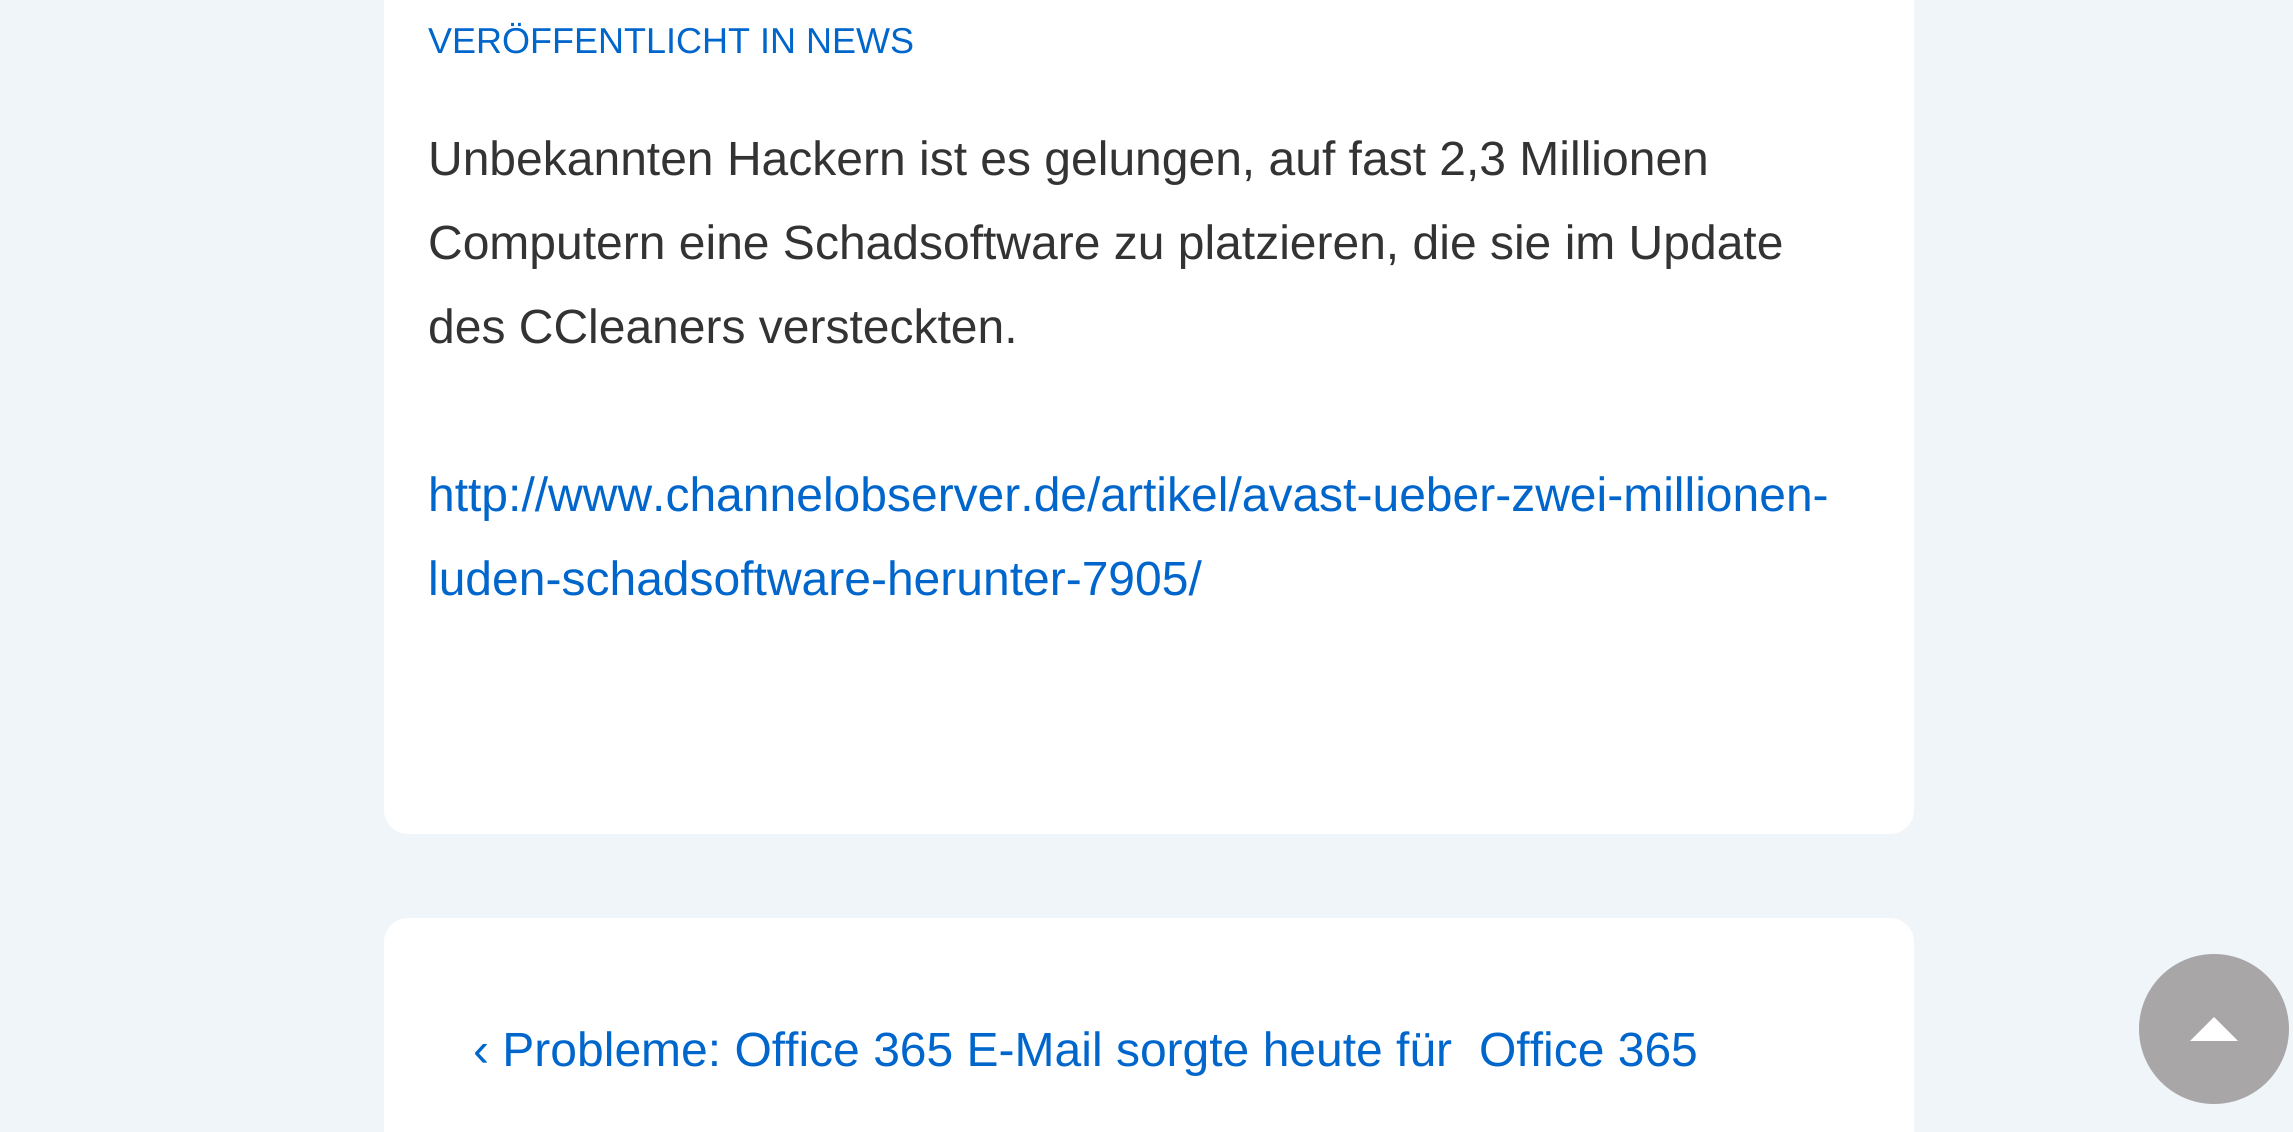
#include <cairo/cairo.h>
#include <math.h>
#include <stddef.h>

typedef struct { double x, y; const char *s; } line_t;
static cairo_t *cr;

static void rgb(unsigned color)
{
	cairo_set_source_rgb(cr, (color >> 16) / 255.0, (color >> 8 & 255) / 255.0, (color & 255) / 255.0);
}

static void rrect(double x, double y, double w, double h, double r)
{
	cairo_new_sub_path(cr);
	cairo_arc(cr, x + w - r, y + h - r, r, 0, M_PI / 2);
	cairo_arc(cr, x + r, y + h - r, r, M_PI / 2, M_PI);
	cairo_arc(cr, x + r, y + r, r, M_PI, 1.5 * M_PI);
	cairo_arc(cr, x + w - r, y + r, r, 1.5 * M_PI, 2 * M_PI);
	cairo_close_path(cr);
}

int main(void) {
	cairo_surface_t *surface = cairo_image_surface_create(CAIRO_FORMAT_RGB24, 2293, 1132);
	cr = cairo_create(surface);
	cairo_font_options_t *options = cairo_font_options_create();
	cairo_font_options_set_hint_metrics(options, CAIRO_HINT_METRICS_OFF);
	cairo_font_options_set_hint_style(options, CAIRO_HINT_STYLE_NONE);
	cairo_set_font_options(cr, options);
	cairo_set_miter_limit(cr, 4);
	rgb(0xf0f5fa);
	cairo_paint(cr);
	rgb(0xffffff);
	rrect(384, -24, 1530, 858, 24);
	cairo_fill(cr);
	rrect(384, 918, 1530, 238, 24);
	cairo_fill(cr);
	rgb(0xa8a6a6);
	cairo_arc(cr, 2214, 1029, 75, 0, 2 * M_PI);
	cairo_fill(cr);
	rgb(0xffffff);
	cairo_new_path(cr);
	cairo_move_to(cr, 2238, 1041);
	cairo_line_to(cr, 2190, 1041);
	cairo_line_to(cr, 2214, 1017);
	cairo_close_path(cr);
	cairo_fill(cr);
	cairo_select_font_face(cr, "Liberation Sans", CAIRO_FONT_SLANT_NORMAL, CAIRO_FONT_WEIGHT_NORMAL);
	cairo_set_font_size(cr, 36);
	rgb(0x0066cc);
	cairo_move_to(cr, 428, 53);
	cairo_show_text(cr, "VERÖFFENTLICHT IN NEWS");
	cairo_set_font_size(cr, 48);
	rgb(0x333333);
	{
		static const line_t items[] = {
			{428, 175, "Unbekannten Hackern ist es gelungen, auf fast 2,3 Millionen"},
			{428, 259, "Computern eine Schadsoftware zu platzieren, die sie im Update"},
			{428, 343, "des CCleaners versteckten."},
		};
		for (size_t i = 0; i < sizeof items / sizeof *items; i++) {
			cairo_move_to(cr, items[i].x, items[i].y);
			cairo_show_text(cr, items[i].s);
		}
	}
	rgb(0x0066cc);
	{
		static const line_t items[] = {
			{428, 511, "http://www.channelobserver.de/artikel/avast-ueber-zwei-millionen-"},
			{428, 595, "luden-schadsoftware-herunter-7905/"},
			{473, 1066, "‹ Probleme: Office 365 E-Mail sorgte heute für"},
			{1479, 1066, "Office 365"},
		};
		for (size_t i = 0; i < sizeof items / sizeof *items; i++) {
			cairo_move_to(cr, items[i].x, items[i].y);
			cairo_show_text(cr, items[i].s);
		}
	}
	cairo_surface_write_to_png(surface, "page.png");
	cairo_font_options_destroy(options);
	cairo_destroy(cr);
	cairo_surface_destroy(surface);
	return 0;
}
